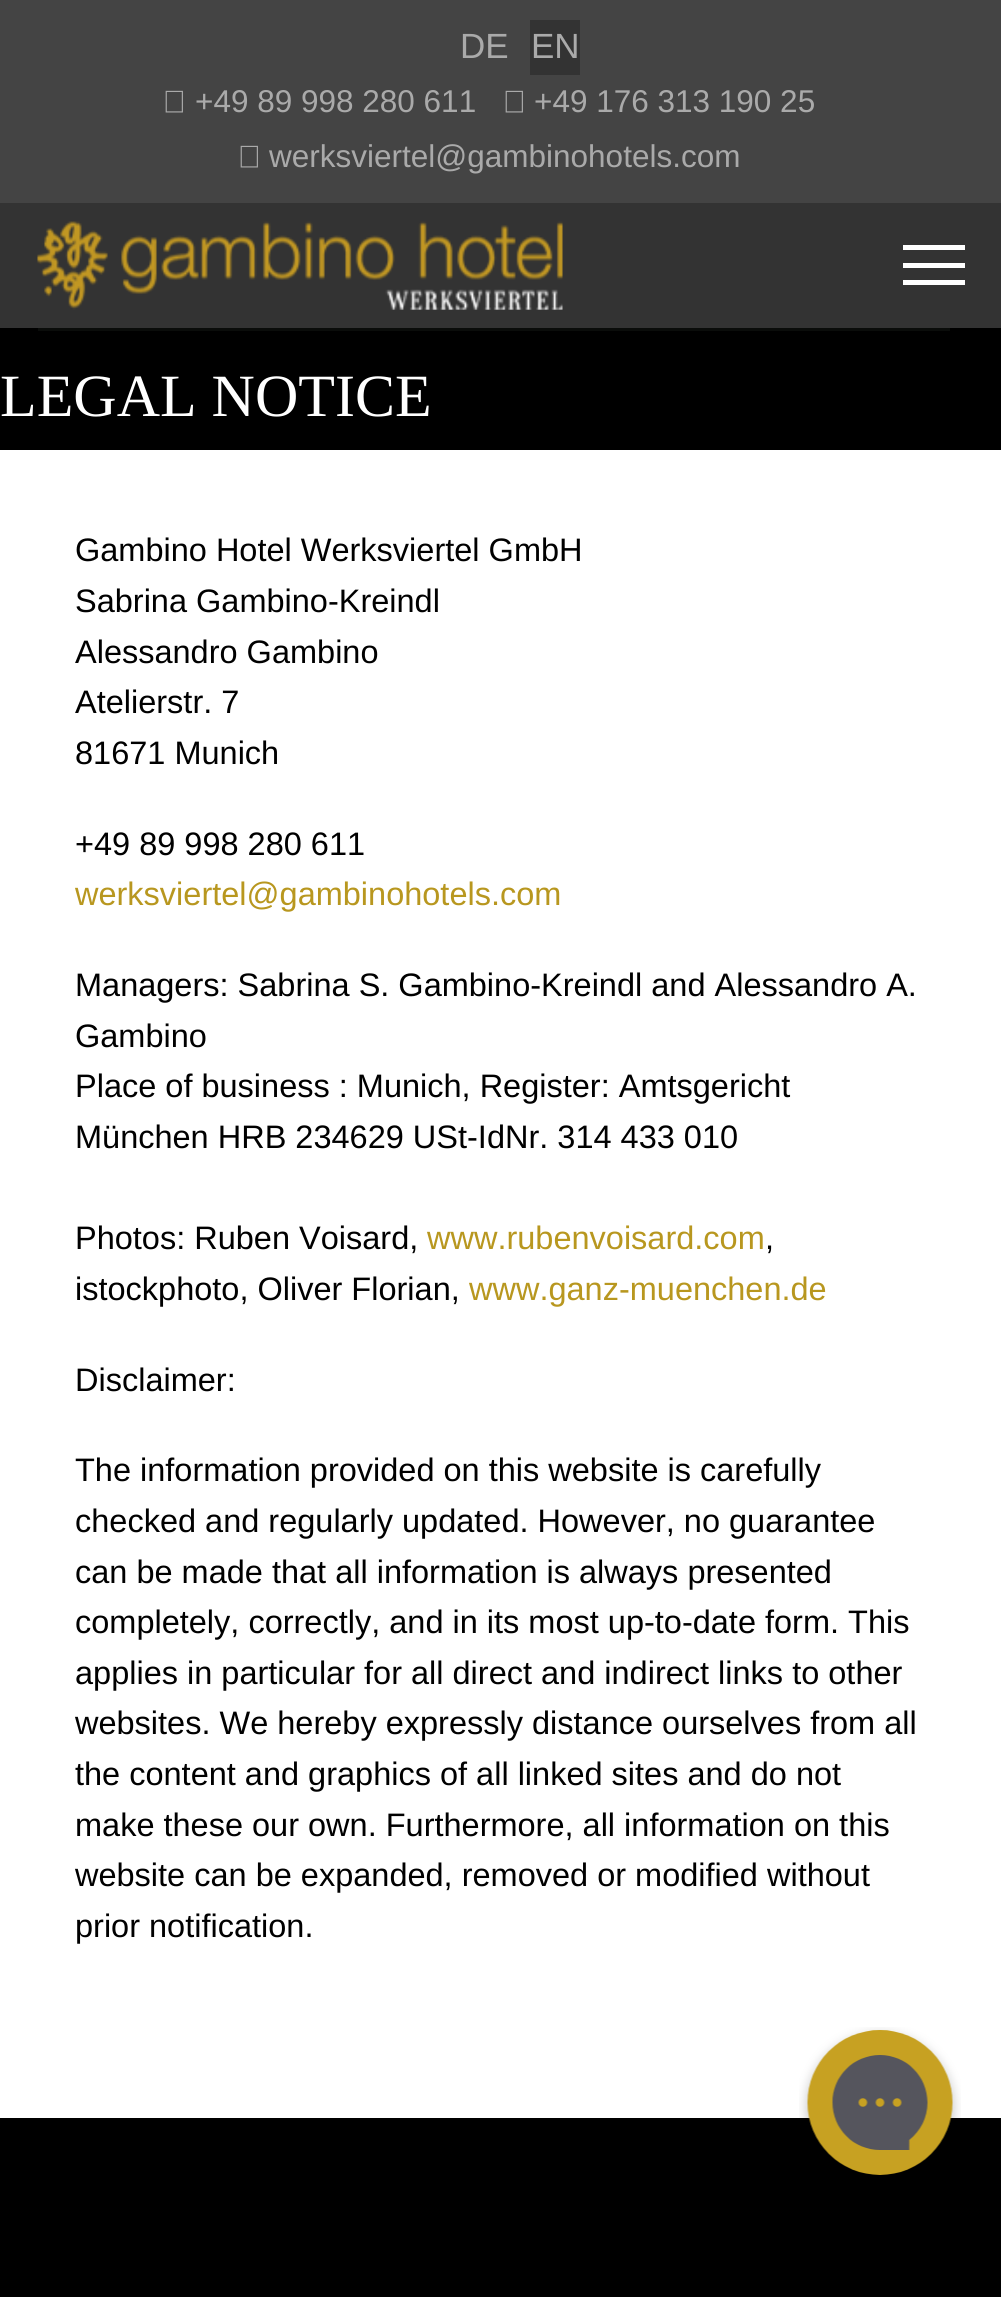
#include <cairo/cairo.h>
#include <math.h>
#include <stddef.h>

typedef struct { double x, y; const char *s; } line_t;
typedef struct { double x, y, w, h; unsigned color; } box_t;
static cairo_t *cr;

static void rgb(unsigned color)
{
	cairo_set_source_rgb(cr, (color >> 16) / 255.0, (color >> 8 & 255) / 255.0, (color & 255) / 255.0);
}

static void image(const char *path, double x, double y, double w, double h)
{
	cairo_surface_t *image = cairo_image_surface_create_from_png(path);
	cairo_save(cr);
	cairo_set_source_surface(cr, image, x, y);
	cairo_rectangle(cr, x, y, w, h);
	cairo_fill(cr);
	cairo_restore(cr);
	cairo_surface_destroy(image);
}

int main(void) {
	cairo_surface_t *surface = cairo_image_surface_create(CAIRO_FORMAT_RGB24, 1001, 2297);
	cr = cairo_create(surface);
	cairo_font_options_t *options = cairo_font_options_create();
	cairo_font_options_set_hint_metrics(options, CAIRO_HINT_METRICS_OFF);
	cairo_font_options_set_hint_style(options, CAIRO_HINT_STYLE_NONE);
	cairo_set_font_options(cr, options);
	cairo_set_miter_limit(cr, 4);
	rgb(0x000000);
	cairo_paint(cr);
	rgb(0x444444);
	cairo_rectangle(cr, 0, 0, 1001, 203);
	cairo_fill(cr);
	rgb(0x333333);
	cairo_rectangle(cr, 530, 20, 50, 55);
	cairo_fill(cr);
	image("img/1.png", 165, 90, 18, 23);
	image("img/1.png", 505, 90, 18, 23);
	image("img/1.png", 240, 145, 18, 23);
	cairo_rectangle(cr, 0, 203, 1001, 125);
	cairo_fill(cr);
	image("img/2.png", 37, 221, 526, 89);
	{
		static const box_t items[] = {
			{903, 245, 62, 5, 0xffffff},
			{903, 263, 62, 5, 0xffffff},
			{903, 280, 62, 5, 0xffffff},
			{38, 328, 912, 3, 0x0a0c0a},
			{0, 450, 1001, 1668, 0xffffff},
		};
		for (size_t i = 0; i < sizeof items / sizeof *items; i++) {
			rgb(items[i].color);
			cairo_rectangle(cr, items[i].x, items[i].y, items[i].w, items[i].h);
			cairo_fill(cr);
		}
	}
	image("img/3.png", 799, 2027, 162, 148);
	cairo_select_font_face(cr, "Liberation Sans", CAIRO_FONT_SLANT_NORMAL, CAIRO_FONT_WEIGHT_NORMAL);
	cairo_set_font_size(cr, 35);
	rgb(0xaaaaaa);
	cairo_move_to(cr, 460, 58);
	cairo_show_text(cr, "DE");
	cairo_move_to(cr, 531, 58);
	cairo_show_text(cr, "EN");
	cairo_set_font_size(cr, 31.5);
	{
		static const line_t items[] = {
			{195, 112, "+49 89 998 280 611"},
			{534, 112, "+49 176 313 190 25"},
			{269, 167, "werksviertel@gambinohotels.com"},
		};
		for (size_t i = 0; i < sizeof items / sizeof *items; i++) {
			cairo_move_to(cr, items[i].x, items[i].y);
			cairo_show_text(cr, items[i].s);
		}
	}
	cairo_select_font_face(cr, "Liberation Serif", CAIRO_FONT_SLANT_NORMAL, CAIRO_FONT_WEIGHT_NORMAL);
	cairo_set_font_size(cr, 60);
	rgb(0xffffff);
	cairo_move_to(cr, 0, 416);
	cairo_show_text(cr, "LEGAL NOTICE");
	cairo_select_font_face(cr, "Liberation Sans", CAIRO_FONT_SLANT_NORMAL, CAIRO_FONT_WEIGHT_NORMAL);
	cairo_set_font_size(cr, 32.5);
	rgb(0x000000);
	{
		static const line_t items[] = {
			{75, 561, "Gambino Hotel Werksviertel GmbH"},
			{75, 612, "Sabrina Gambino-Kreindl"},
			{75, 663, "Alessandro Gambino"},
			{75, 713, "Atelierstr. 7"},
			{75, 764, "81671 Munich"},
			{75, 855, "+49 89 998 280 611"},
		};
		for (size_t i = 0; i < sizeof items / sizeof *items; i++) {
			cairo_move_to(cr, items[i].x, items[i].y);
			cairo_show_text(cr, items[i].s);
		}
	}
	rgb(0xb8971f);
	cairo_move_to(cr, 75, 905);
	cairo_show_text(cr, "werksviertel@gambinohotels.com");
	rgb(0x000000);
	{
		static const line_t items[] = {
			{75, 996, "Managers: Sabrina S. Gambino-Kreindl and Alessandro A."},
			{75, 1047, "Gambino"},
			{75, 1097, "Place of business : Munich, Register: Amtsgericht"},
			{75, 1148, "München HRB 234629 USt-IdNr. 314 433 010"},
			{75, 1249, "Photos: Ruben Voisard,"},
		};
		for (size_t i = 0; i < sizeof items / sizeof *items; i++) {
			cairo_move_to(cr, items[i].x, items[i].y);
			cairo_show_text(cr, items[i].s);
		}
	}
	rgb(0xb8971f);
	cairo_move_to(cr, 427, 1249);
	cairo_show_text(cr, "www.rubenvoisard.com");
	rgb(0x000000);
	cairo_move_to(cr, 765, 1249);
	cairo_show_text(cr, ",");
	cairo_move_to(cr, 75, 1300);
	cairo_show_text(cr, "istockphoto, Oliver Florian,");
	rgb(0xb8971f);
	cairo_move_to(cr, 469, 1300);
	cairo_show_text(cr, "www.ganz-muenchen.de");
	rgb(0x000000);
	{
		static const line_t items[] = {
			{75, 1391, "Disclaimer:"},
			{75, 1481, "The information provided on this website is carefully"},
			{75, 1532, "checked and regularly updated. However, no guarantee"},
			{75, 1583, "can be made that all information is always presented"},
			{75, 1633, "completely, correctly, and in its most up-to-date form. This"},
			{75, 1684, "applies in particular for all direct and indirect links to other"},
			{75, 1734, "websites. We hereby expressly distance ourselves from all"},
			{75, 1785, "the content and graphics of all linked sites and do not"},
			{75, 1836, "make these our own. Furthermore, all information on this"},
			{75, 1886, "website can be expanded, removed or modified without"},
			{75, 1937, "prior notification."},
		};
		for (size_t i = 0; i < sizeof items / sizeof *items; i++) {
			cairo_move_to(cr, items[i].x, items[i].y);
			cairo_show_text(cr, items[i].s);
		}
	}
	cairo_surface_write_to_png(surface, "page.png");
	cairo_font_options_destroy(options);
	cairo_destroy(cr);
	cairo_surface_destroy(surface);
	return 0;
}
